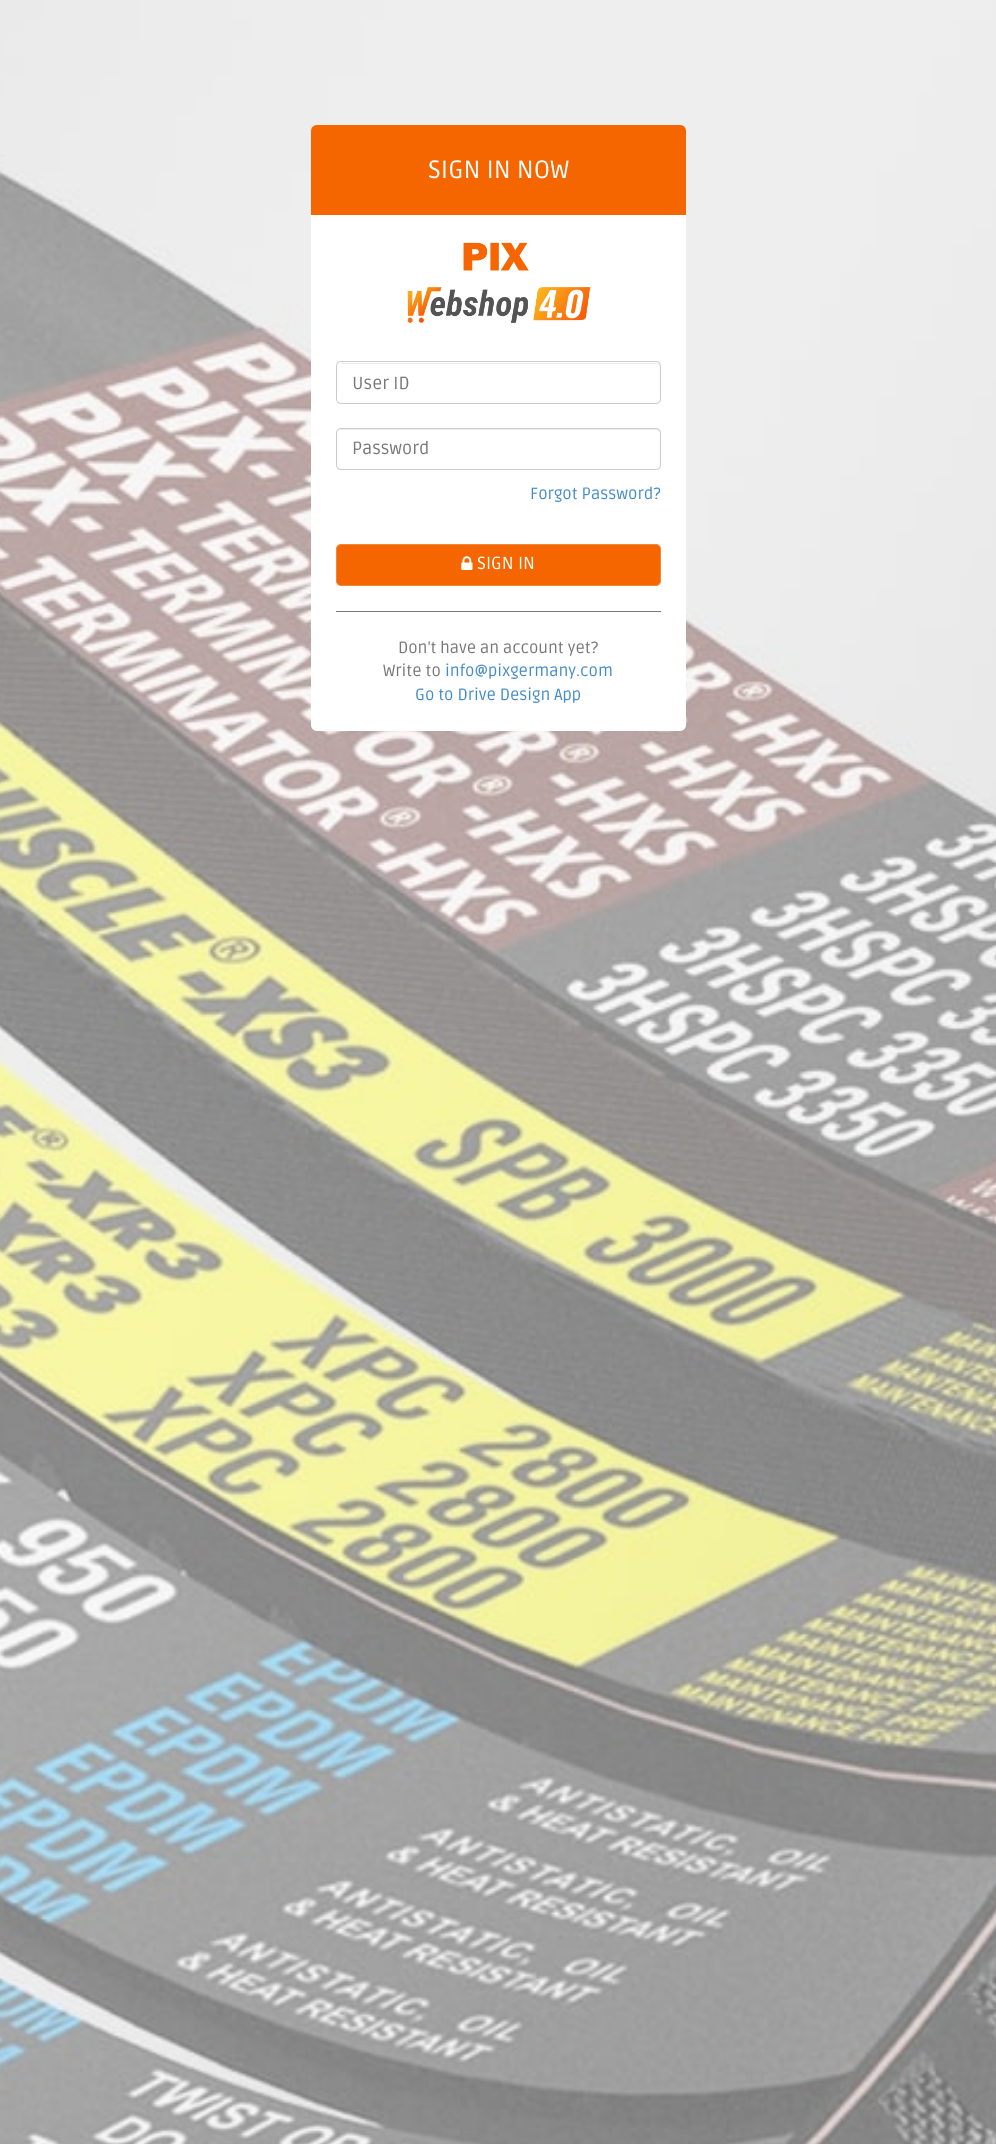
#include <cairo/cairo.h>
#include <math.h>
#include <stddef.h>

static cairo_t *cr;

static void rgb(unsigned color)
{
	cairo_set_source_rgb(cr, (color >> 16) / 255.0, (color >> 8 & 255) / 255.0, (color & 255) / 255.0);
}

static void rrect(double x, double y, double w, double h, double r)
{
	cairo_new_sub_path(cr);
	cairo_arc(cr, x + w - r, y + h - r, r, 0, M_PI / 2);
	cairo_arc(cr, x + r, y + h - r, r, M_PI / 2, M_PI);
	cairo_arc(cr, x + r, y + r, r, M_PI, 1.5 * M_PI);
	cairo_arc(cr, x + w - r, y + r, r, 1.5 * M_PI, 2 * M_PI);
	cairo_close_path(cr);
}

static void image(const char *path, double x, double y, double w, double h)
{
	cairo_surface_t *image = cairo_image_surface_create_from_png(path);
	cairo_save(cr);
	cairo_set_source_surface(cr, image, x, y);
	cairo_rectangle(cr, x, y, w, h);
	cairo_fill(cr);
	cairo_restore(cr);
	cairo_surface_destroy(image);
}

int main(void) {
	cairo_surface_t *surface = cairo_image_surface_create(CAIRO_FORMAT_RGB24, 996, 2144);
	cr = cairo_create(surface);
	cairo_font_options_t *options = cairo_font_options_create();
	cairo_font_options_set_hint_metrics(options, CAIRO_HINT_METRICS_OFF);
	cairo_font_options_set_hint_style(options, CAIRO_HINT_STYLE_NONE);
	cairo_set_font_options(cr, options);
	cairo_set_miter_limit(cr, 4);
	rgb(0xffffff);
	cairo_paint(cr);
	image("img/1.png", 0, 0, 996, 2144);
	rgb(0xffffff);
	rrect(311, 125, 375, 606, 6);
	cairo_fill(cr);
	rgb(0xf56600);
	cairo_new_path(cr);
	cairo_move_to(cr, 317, 125);
	cairo_line_to(cr, 680, 125);
	cairo_curve_to(cr, 683.5, 125, 686, 127.5, 686, 131);
	cairo_line_to(cr, 686, 215);
	cairo_line_to(cr, 311, 215);
	cairo_line_to(cr, 311, 131);
	cairo_curve_to(cr, 311, 127.5, 313.5, 125, 317, 125);
	cairo_close_path(cr);
	cairo_fill(cr);
	image("img/2.png", 407, 242, 184, 81);
	rgb(0xececec);
	cairo_new_path(cr);
	cairo_move_to(cr, 341, 364);
	cairo_line_to(cr, 656, 364);
	cairo_curve_to(cr, 658, 364, 660, 365, 660, 368);
	cairo_line_to(cr, 660, 367);
	cairo_curve_to(cr, 660, 365, 658, 363, 656, 363);
	cairo_line_to(cr, 342, 363);
	cairo_curve_to(cr, 340, 363, 338, 365, 338, 367);
	cairo_line_to(cr, 338, 368);
	cairo_curve_to(cr, 338, 365, 339, 364, 341, 364);
	cairo_close_path(cr);
	cairo_fill(cr);
	rrect(336.5, 361.5, 324, 42, 4.5);
	rgb(0xcccccc);
	cairo_set_line_width(cr, 1);
	cairo_stroke(cr);
	rgb(0xececec);
	cairo_new_path(cr);
	cairo_move_to(cr, 341, 430);
	cairo_line_to(cr, 656, 430);
	cairo_curve_to(cr, 658, 430, 660, 432, 660, 434);
	cairo_line_to(cr, 660, 433);
	cairo_curve_to(cr, 660, 431, 658, 429, 656, 429);
	cairo_line_to(cr, 342, 429);
	cairo_curve_to(cr, 340, 429, 338, 431, 338, 433);
	cairo_line_to(cr, 338, 434);
	cairo_curve_to(cr, 338, 432, 339, 430, 341, 430);
	cairo_close_path(cr);
	cairo_fill(cr);
	rrect(336.5, 428.5, 324, 41, 4.5);
	rgb(0xcccccc);
	cairo_stroke(cr);
	rgb(0xf56600);
	rrect(336.5, 544.5, 324, 41, 4.5);
	cairo_fill_preserve(cr);
	rgb(0xf28639);
	cairo_stroke(cr);
	image("img/3.png", 461, 556, 12, 14);
	rgb(0x797979);
	cairo_rectangle(cr, 336, 611, 325, 1);
	cairo_fill(cr);
	cairo_select_font_face(cr, "Ruda", CAIRO_FONT_SLANT_NORMAL, CAIRO_FONT_WEIGHT_NORMAL);
	cairo_set_font_size(cr, 25);
	rgb(0xffffff);
	cairo_move_to(cr, 428, 178);
	cairo_show_text(cr, "SIGN IN NOW");
	cairo_set_font_size(cr, 17.5);
	rgb(0x777777);
	cairo_move_to(cr, 352, 389);
	cairo_show_text(cr, "User ID");
	cairo_move_to(cr, 352, 454);
	cairo_show_text(cr, "Password");
	cairo_set_font_size(cr, 16.25);
	rgb(0x428bca);
	cairo_move_to(cr, 530, 499);
	cairo_show_text(cr, "Forgot Password?");
	cairo_set_font_size(cr, 17.5);
	rgb(0xffffff);
	cairo_move_to(cr, 477, 569);
	cairo_show_text(cr, "SIGN IN");
	cairo_set_font_size(cr, 16.25);
	rgb(0x777777);
	cairo_move_to(cr, 398, 653);
	cairo_show_text(cr, "Don't have an account yet?");
	cairo_move_to(cr, 383, 676);
	cairo_show_text(cr, "Write to");
	rgb(0x428bca);
	cairo_move_to(cr, 445, 676);
	cairo_show_text(cr, "info@pixgermany.com");
	cairo_move_to(cr, 415, 700);
	cairo_show_text(cr, "Go to Drive Design App");
	cairo_surface_write_to_png(surface, "page.png");
	cairo_font_options_destroy(options);
	cairo_destroy(cr);
	cairo_surface_destroy(surface);
	return 0;
}
